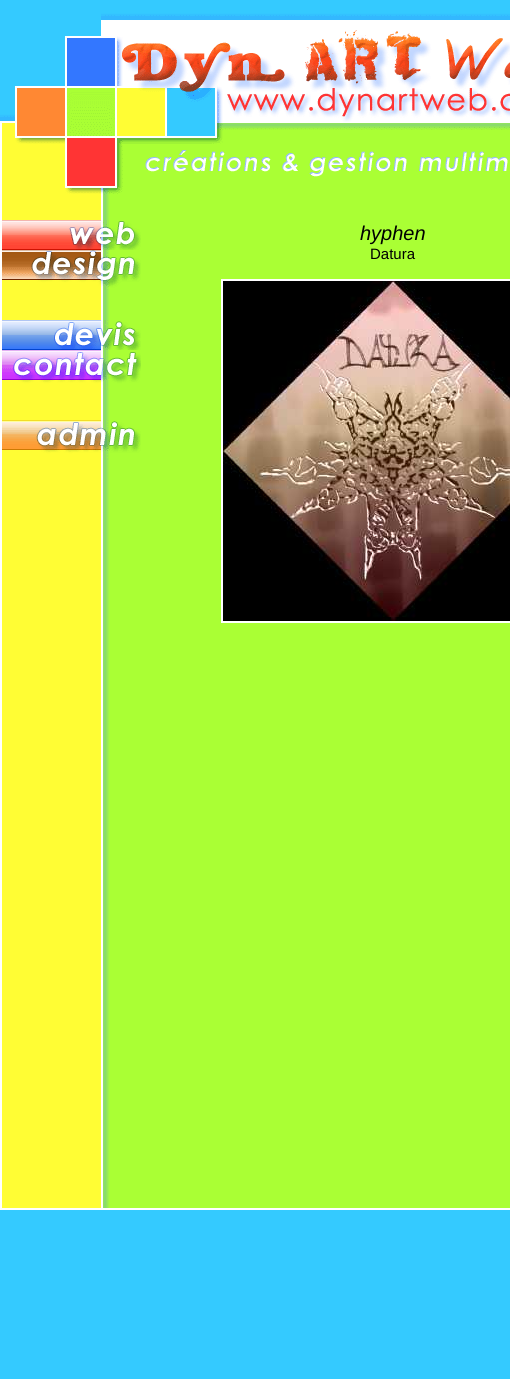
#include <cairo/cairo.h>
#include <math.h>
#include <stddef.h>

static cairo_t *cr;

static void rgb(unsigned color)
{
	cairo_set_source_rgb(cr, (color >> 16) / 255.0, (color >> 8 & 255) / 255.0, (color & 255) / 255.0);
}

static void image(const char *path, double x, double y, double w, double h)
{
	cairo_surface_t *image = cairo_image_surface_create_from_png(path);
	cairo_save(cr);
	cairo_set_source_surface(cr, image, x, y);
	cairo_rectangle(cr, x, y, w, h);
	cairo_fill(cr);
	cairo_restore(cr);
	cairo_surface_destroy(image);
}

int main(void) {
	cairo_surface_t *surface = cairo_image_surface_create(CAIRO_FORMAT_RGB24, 510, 1379);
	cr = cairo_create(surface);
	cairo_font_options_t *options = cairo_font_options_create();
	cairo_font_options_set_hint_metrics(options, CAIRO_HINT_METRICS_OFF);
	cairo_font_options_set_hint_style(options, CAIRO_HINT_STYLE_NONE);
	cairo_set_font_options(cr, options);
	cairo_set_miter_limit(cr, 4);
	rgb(0x34caff);
	cairo_paint(cr);
	image("img/1.png", 0, 195, 510, 1013);
	image("img/2.png", 0, 10, 510, 185);
	image("img/3.png", 2, 220, 139, 30);
	image("img/4.png", 2, 250, 139, 40);
	image("img/5.png", 2, 320, 139, 30);
	image("img/6.png", 2, 350, 139, 40);
	image("img/7.png", 2, 420, 139, 40);
	cairo_rectangle(cr, 222, 280, 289, 342);
	rgb(0xffffff);
	cairo_stroke(cr);
	image("img/8.png", 223, 281, 287, 340);
	cairo_rectangle(cr, 0, 1208, 510, 2);
	cairo_fill(cr);
	cairo_select_font_face(cr, "Liberation Sans", CAIRO_FONT_SLANT_ITALIC, CAIRO_FONT_WEIGHT_NORMAL);
	cairo_set_font_size(cr, 20);
	rgb(0x000000);
	cairo_move_to(cr, 360, 240);
	cairo_show_text(cr, "hyphen");
	cairo_select_font_face(cr, "Liberation Sans", CAIRO_FONT_SLANT_NORMAL, CAIRO_FONT_WEIGHT_NORMAL);
	cairo_set_font_size(cr, 15);
	cairo_move_to(cr, 370, 259);
	cairo_show_text(cr, "Datura");
	cairo_surface_write_to_png(surface, "page.png");
	cairo_font_options_destroy(options);
	cairo_destroy(cr);
	cairo_surface_destroy(surface);
	return 0;
}
